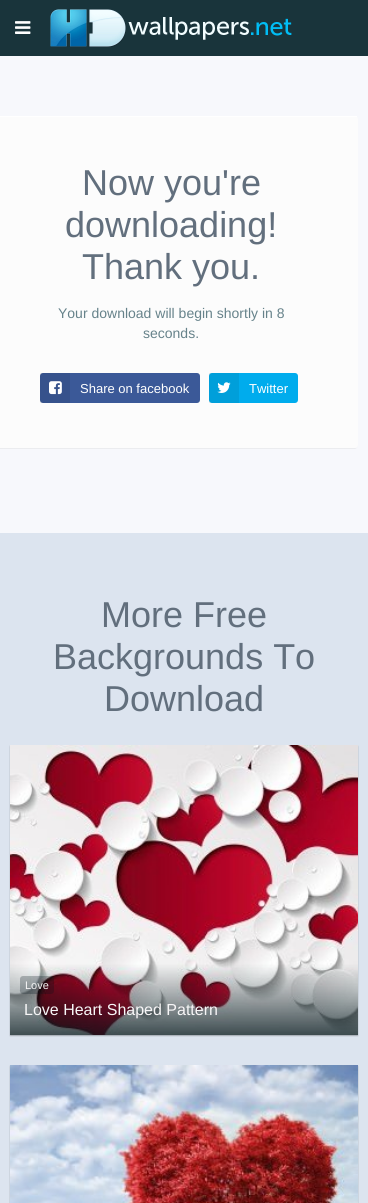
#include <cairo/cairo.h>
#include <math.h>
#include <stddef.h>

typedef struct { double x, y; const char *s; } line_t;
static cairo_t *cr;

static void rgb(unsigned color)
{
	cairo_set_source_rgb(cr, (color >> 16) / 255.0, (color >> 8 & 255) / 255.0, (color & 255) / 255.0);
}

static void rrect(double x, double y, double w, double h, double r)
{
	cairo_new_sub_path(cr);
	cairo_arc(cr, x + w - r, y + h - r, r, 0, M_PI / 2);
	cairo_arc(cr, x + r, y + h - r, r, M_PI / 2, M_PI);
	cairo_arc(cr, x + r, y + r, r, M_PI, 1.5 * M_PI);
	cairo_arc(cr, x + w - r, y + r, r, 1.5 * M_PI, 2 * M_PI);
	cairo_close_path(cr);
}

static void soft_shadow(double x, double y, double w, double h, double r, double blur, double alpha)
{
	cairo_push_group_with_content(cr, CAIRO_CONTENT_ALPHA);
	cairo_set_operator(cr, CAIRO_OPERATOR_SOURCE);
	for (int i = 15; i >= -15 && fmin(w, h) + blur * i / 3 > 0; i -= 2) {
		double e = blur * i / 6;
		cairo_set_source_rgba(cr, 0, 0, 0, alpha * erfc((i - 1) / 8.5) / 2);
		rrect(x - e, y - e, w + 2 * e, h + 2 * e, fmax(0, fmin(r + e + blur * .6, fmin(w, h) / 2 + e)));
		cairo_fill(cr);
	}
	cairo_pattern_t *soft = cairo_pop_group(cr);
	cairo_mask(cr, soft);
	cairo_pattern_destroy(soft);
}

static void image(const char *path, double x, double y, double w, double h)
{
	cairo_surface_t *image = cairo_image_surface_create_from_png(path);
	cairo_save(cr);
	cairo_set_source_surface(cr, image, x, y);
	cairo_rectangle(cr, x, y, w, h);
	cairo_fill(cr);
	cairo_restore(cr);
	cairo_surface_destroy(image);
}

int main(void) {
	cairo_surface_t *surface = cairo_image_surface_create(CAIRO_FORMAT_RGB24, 368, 1203);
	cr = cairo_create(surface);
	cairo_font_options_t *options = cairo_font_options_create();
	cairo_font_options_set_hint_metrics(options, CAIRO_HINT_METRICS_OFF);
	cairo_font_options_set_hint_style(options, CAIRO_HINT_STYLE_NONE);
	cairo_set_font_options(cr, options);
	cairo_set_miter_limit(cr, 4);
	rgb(0xf7f8fc);
	cairo_paint(cr);
	rgb(0x19343b);
	cairo_rectangle(cr, 0, 0, 368, 56);
	cairo_fill(cr);
	image("img/1.png", 15, 21, 16, 13);
	image("img/2.png", 50, 9, 242, 38);
	rgb(0xebecef);
	cairo_new_path(cr);
	cairo_move_to(cr, -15, 445);
	cairo_curve_to(cr, -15, 447, -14, 449, -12, 449);
	cairo_line_to(cr, 355, 449);
	cairo_line_to(cr, 357, 448);
	cairo_line_to(cr, 358, 445);
	cairo_curve_to(cr, 358, 447, 357, 448, 355, 448);
	cairo_line_to(cr, -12, 448);
	cairo_curve_to(cr, -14, 448, -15, 447, -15, 445);
	cairo_close_path(cr);
	cairo_fill(cr);
	rgb(0xfcfcfc);
	rrect(-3, 116, 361, 332, 3);
	cairo_fill(cr);
	rgb(0xffffff);
	cairo_rectangle(cr, 0, 116, 357, 1);
	cairo_fill(cr);
	rgb(0x3b5998);
	rrect(40, 373, 160, 30, 3);
	cairo_fill(cr);
	cairo_set_source_rgba(cr, 0, 0, 0, 0.08);
	cairo_rectangle(cr, 40, 373, 30, 30);
	cairo_fill(cr);
	image("img/3.png", 49, 381, 13, 14);
	rgb(0x00aced);
	rrect(209, 373, 89, 30, 3);
	cairo_fill(cr);
	cairo_set_source_rgba(cr, 0, 0, 0, 0.08);
	cairo_rectangle(cr, 209, 373, 30, 30);
	cairo_fill(cr);
	image("img/4.png", 217, 382, 14, 11);
	rgb(0xdce4ef);
	cairo_rectangle(cr, 0, 533, 368, 670);
	cairo_fill(cr);
	rgb(0x000000);
	soft_shadow(10, 746, 348, 290, 0, 0.5, 0.25);
	image("img/5.png", 10, 745, 348, 290);
	cairo_set_source_rgba(cr, 0, 0.078, 0.102, 0.25);
	rrect(20, 976, 34, 18, 3);
	cairo_fill(cr);
	rgb(0x000000);
	soft_shadow(10, 1066, 348, 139, 0, 0.5, 0.25);
	image("img/6.png", 10, 1065, 348, 138);
	cairo_select_font_face(cr, "Liberation Sans", CAIRO_FONT_SLANT_NORMAL, CAIRO_FONT_WEIGHT_NORMAL);
	cairo_set_font_size(cr, 36);
	rgb(0x626f7d);
	{
		static const line_t items[] = {
			{82, 195, "Now you're"},
			{65, 237, "downloading!"},
			{82, 279, "Thank you."},
		};
		for (size_t i = 0; i < sizeof items / sizeof *items; i++) {
			cairo_move_to(cr, items[i].x, items[i].y);
			cairo_show_text(cr, items[i].s);
		}
	}
	cairo_set_font_size(cr, 14);
	rgb(0x66828a);
	cairo_move_to(cr, 58, 318);
	cairo_show_text(cr, "Your download will begin shortly in 8");
	cairo_move_to(cr, 143, 338);
	cairo_show_text(cr, "seconds.");
	cairo_set_font_size(cr, 13);
	rgb(0xffffff);
	cairo_move_to(cr, 80, 393);
	cairo_show_text(cr, "Share on facebook");
	cairo_move_to(cr, 249, 393);
	cairo_show_text(cr, "Twitter");
	cairo_set_font_size(cr, 36);
	rgb(0x626f7d);
	{
		static const line_t items[] = {
			{101, 627, "More Free"},
			{53, 669, "Backgrounds To"},
			{104, 711, "Download"},
		};
		for (size_t i = 0; i < sizeof items / sizeof *items; i++) {
			cairo_move_to(cr, items[i].x, items[i].y);
			cairo_show_text(cr, items[i].s);
		}
	}
	cairo_set_font_size(cr, 11);
	rgb(0xf7f6f7);
	cairo_move_to(cr, 25, 989);
	cairo_show_text(cr, "Love");
	cairo_set_font_size(cr, 16);
	cairo_move_to(cr, 24, 1015);
	cairo_show_text(cr, "Love Heart Shaped Pattern");
	cairo_surface_write_to_png(surface, "page.png");
	cairo_font_options_destroy(options);
	cairo_destroy(cr);
	cairo_surface_destroy(surface);
	return 0;
}
